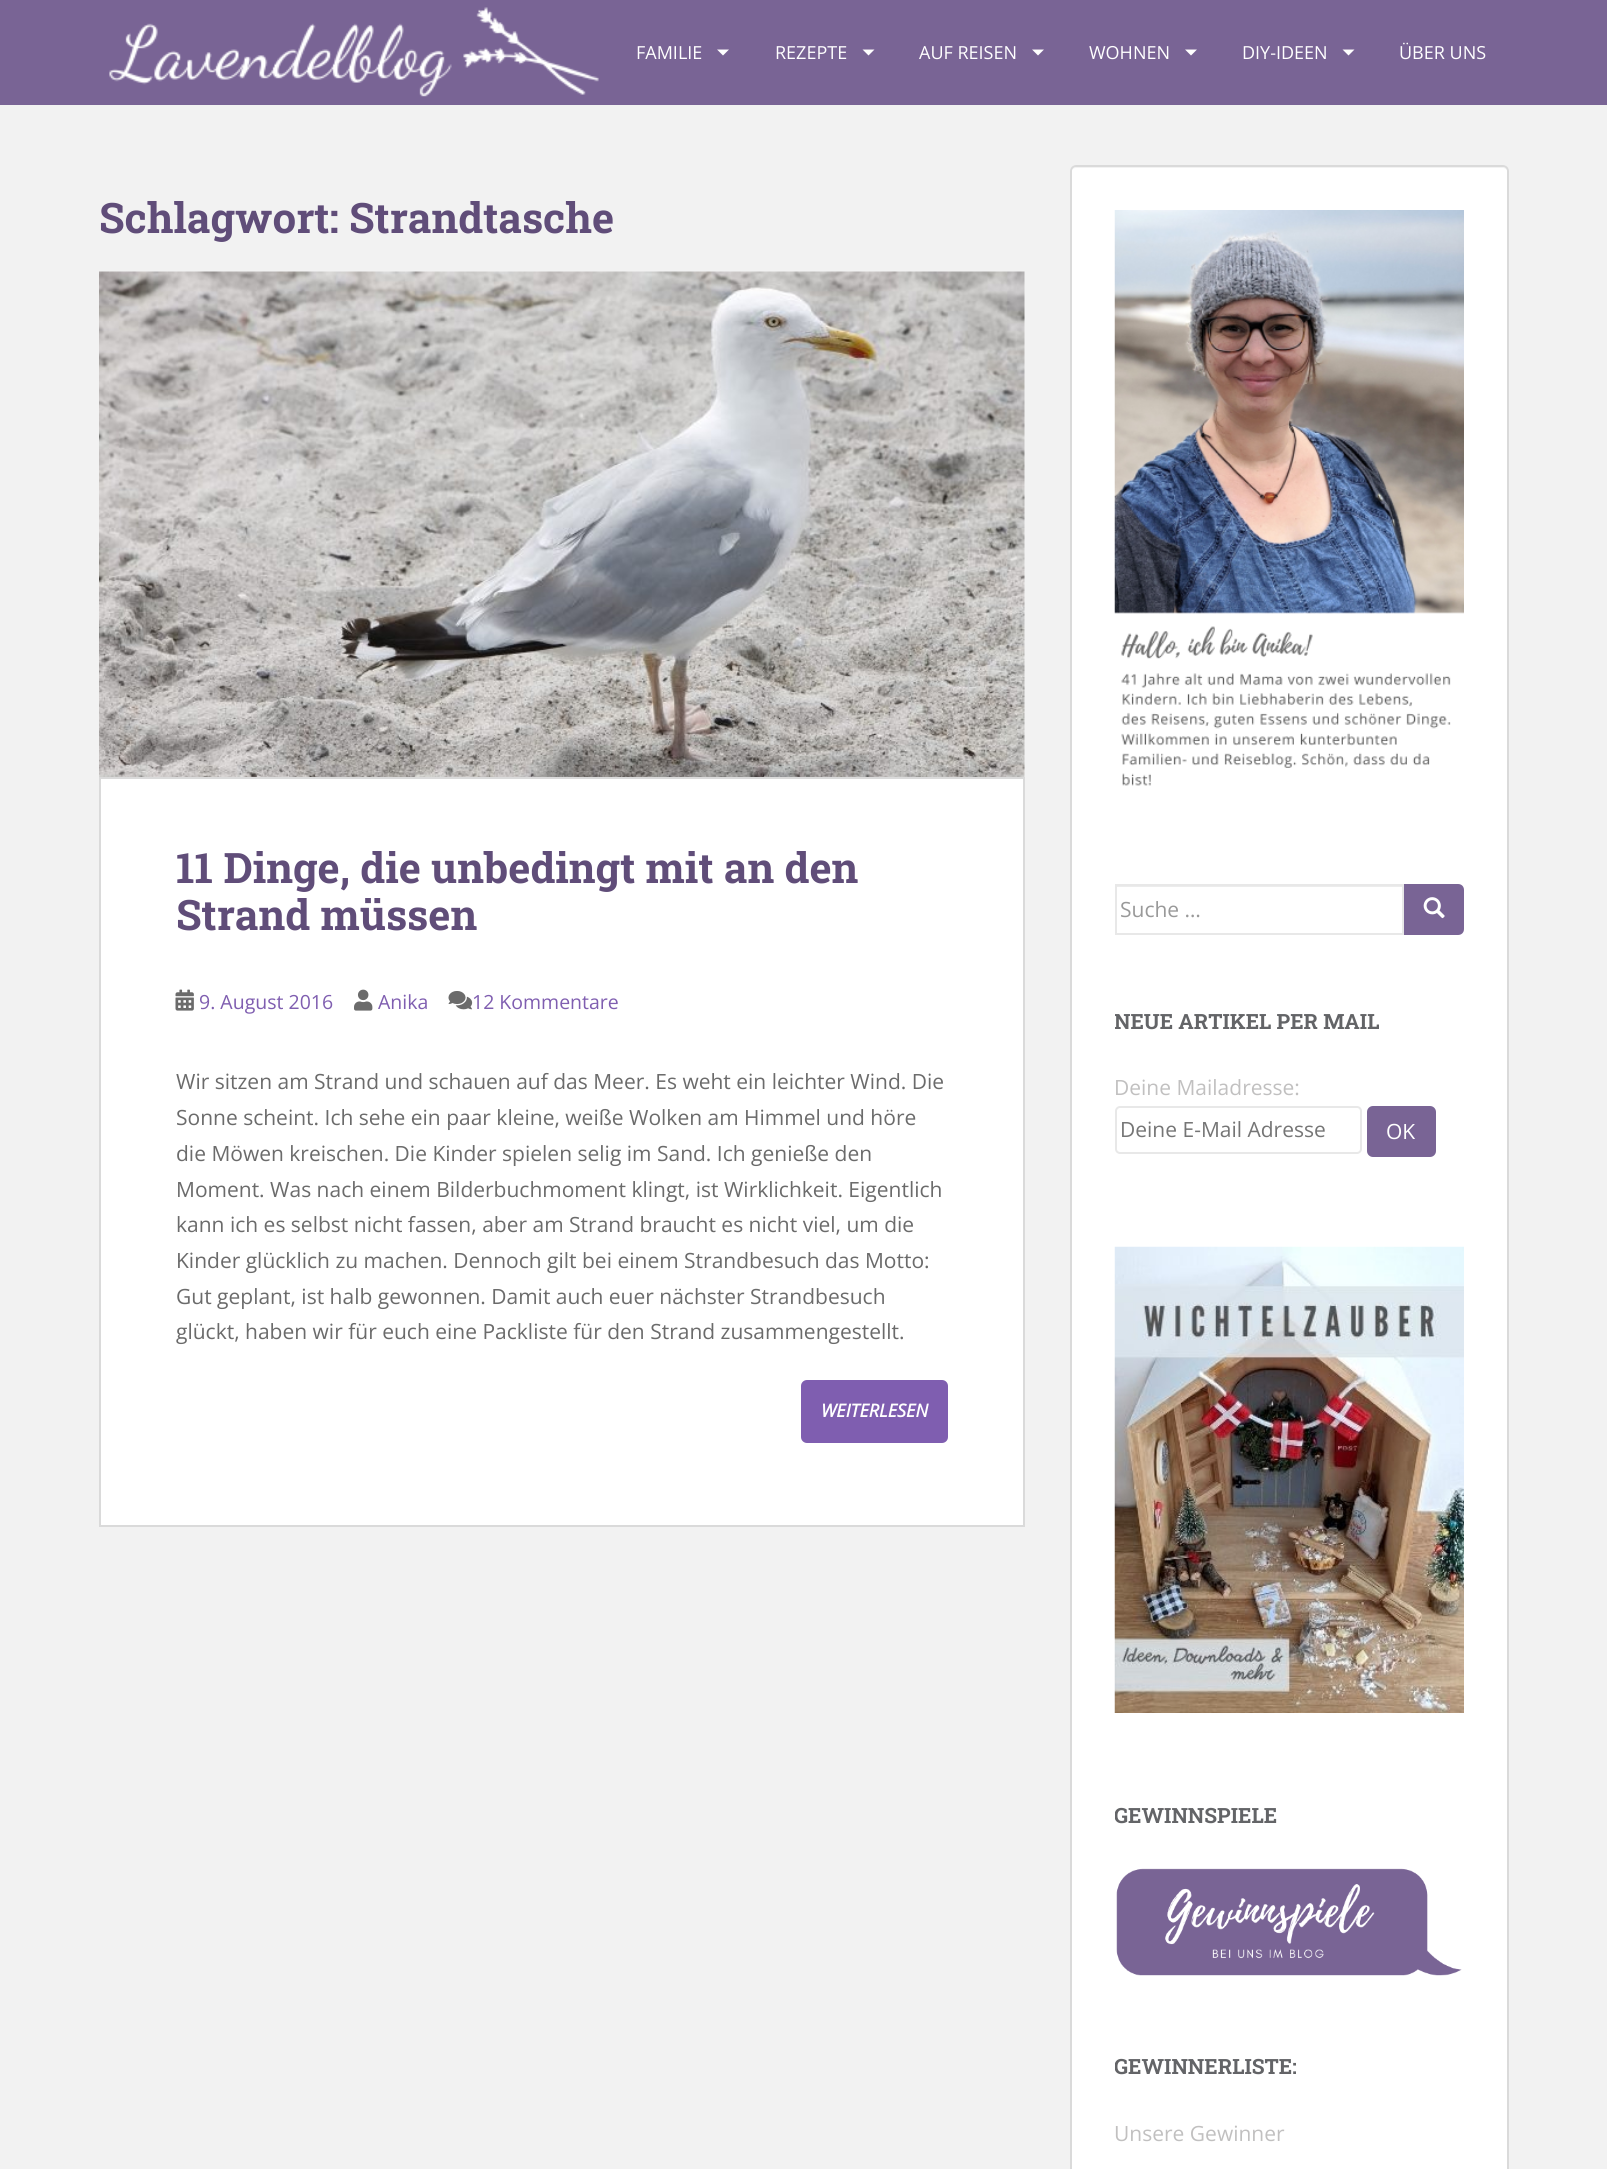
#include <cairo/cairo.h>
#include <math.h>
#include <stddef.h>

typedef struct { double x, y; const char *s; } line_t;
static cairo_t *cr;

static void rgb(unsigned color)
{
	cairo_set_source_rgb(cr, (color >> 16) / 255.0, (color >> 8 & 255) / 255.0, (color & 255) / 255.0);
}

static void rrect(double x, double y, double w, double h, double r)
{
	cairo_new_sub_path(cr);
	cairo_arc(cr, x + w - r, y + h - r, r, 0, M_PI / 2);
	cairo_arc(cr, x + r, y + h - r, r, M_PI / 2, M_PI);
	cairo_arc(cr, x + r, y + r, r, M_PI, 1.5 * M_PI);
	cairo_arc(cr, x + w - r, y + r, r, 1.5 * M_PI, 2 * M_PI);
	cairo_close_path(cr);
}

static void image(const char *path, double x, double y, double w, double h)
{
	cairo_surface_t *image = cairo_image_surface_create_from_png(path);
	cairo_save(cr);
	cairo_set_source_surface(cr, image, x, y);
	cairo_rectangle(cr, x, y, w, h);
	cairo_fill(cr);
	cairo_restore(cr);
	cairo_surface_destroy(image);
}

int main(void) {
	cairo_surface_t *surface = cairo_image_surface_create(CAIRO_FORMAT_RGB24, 1607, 2169);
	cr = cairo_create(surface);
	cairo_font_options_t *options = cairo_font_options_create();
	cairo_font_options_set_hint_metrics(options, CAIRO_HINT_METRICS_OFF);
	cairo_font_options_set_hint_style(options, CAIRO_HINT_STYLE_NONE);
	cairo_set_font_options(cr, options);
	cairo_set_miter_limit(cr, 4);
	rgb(0xf2f2f2);
	cairo_paint(cr);
	rgb(0x796495);
	cairo_rectangle(cr, 0, 0, 1607, 105);
	cairo_fill(cr);
	image("img/1.png", 109, 7, 490, 90);
	rgb(0xffffff);
	cairo_new_path(cr);
	cairo_move_to(cr, 717, 49.5);
	cairo_line_to(cr, 729, 49.5);
	cairo_line_to(cr, 723, 55.5);
	cairo_close_path(cr);
	cairo_fill(cr);
	cairo_new_path(cr);
	cairo_move_to(cr, 862.5, 49.5);
	cairo_line_to(cr, 874.5, 49.5);
	cairo_line_to(cr, 868.5, 55.5);
	cairo_close_path(cr);
	cairo_fill(cr);
	cairo_new_path(cr);
	cairo_move_to(cr, 1032, 49.5);
	cairo_line_to(cr, 1044, 49.5);
	cairo_line_to(cr, 1038, 55.5);
	cairo_close_path(cr);
	cairo_fill(cr);
	cairo_new_path(cr);
	cairo_move_to(cr, 1185, 49.5);
	cairo_line_to(cr, 1197, 49.5);
	cairo_line_to(cr, 1191, 55.5);
	cairo_close_path(cr);
	cairo_fill(cr);
	cairo_new_path(cr);
	cairo_move_to(cr, 1342.5, 49.5);
	cairo_line_to(cr, 1354.5, 49.5);
	cairo_line_to(cr, 1348.5, 55.5);
	cairo_close_path(cr);
	cairo_fill(cr);
	image("img/2.png", 99, 271, 926, 506);
	cairo_rectangle(cr, 100, 778, 924, 748);
	cairo_fill_preserve(cr);
	rgb(0xdadada);
	cairo_stroke(cr);
	image("img/3.png", 175, 989, 19, 22);
	image("img/4.png", 354, 989, 19, 22);
	image("img/5.png", 448, 991, 25, 19);
	rgb(0x7f5eb0);
	rrect(801, 1380, 147, 63, 6);
	cairo_fill(cr);
	rgb(0xffffff);
	rrect(1070, 165, 439, 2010, 6);
	cairo_fill(cr);
	rgb(0xf2f2f2);
	cairo_new_path(cr);
	cairo_move_to(cr, 1076, 168);
	cairo_line_to(cr, 1503, 168);
	cairo_curve_to(cr, 1505, 168, 1508, 170, 1508, 172);
	cairo_curve_to(cr, 1508, 169, 1506, 167, 1503, 167);
	cairo_line_to(cr, 1076, 167);
	cairo_curve_to(cr, 1073, 167, 1071, 169, 1071, 172);
	cairo_curve_to(cr, 1071, 170, 1073, 168, 1076, 168);
	cairo_close_path(cr);
	cairo_fill(cr);
	rrect(1071, 166, 437, 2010, 5);
	rgb(0xdadada);
	cairo_stroke(cr);
	image("img/6.png", 1114, 210, 350, 576);
	rgb(0xececec);
	cairo_rectangle(cr, 1116, 886, 287, 1);
	cairo_fill(cr);
	cairo_rectangle(cr, 1116, 885, 287, 49);
	rgb(0xe8e8e8);
	cairo_stroke(cr);
	rgb(0x796495);
	cairo_new_path(cr);
	cairo_move_to(cr, 1405, 885);
	cairo_line_to(cr, 1458, 885);
	cairo_curve_to(cr, 1461, 885, 1463, 887, 1463, 890);
	cairo_line_to(cr, 1463, 929);
	cairo_curve_to(cr, 1463, 932, 1461, 934, 1458, 934);
	cairo_line_to(cr, 1405, 934);
	cairo_close_path(cr);
	cairo_fill_preserve(cr);
	cairo_stroke(cr);
	image("img/7.png", 1423, 897, 22, 22);
	rrect(1116, 1107, 245, 46, 4);
	rgb(0xe8e8e8);
	cairo_stroke(cr);
	rgb(0x796495);
	rrect(1368, 1107, 67, 49, 5);
	cairo_fill_preserve(cr);
	cairo_stroke(cr);
	image("img/8.png", 1114, 1246, 350, 467);
	image("img/9.png", 1116, 1868, 346, 108);
	cairo_select_font_face(cr, "Open Sans", CAIRO_FONT_SLANT_NORMAL, CAIRO_FONT_WEIGHT_NORMAL);
	cairo_set_font_size(cr, 18);
	rgb(0xffffff);
	{
		static const line_t items[] = {
			{636, 59, "FAMILIE"},
			{775, 59, "REZEPTE"},
			{919, 59, "AUF REISEN"},
			{1089, 59, "WOHNEN"},
			{1242, 59, "DIY-IDEEN"},
			{1399, 59, "ÜBER UNS"},
		};
		for (size_t i = 0; i < sizeof items / sizeof *items; i++) {
			cairo_move_to(cr, items[i].x, items[i].y);
			cairo_show_text(cr, items[i].s);
		}
	}
	cairo_select_font_face(cr, "Roboto Slab", CAIRO_FONT_SLANT_NORMAL, CAIRO_FONT_WEIGHT_BOLD);
	cairo_set_font_size(cr, 42);
	rgb(0x604d79);
	{
		static const line_t items[] = {
			{99, 233, "Schlagwort: Strandtasche"},
			{176, 883, "11 Dinge, die unbedingt mit an den"},
			{176, 930, "Strand müssen"},
		};
		for (size_t i = 0; i < sizeof items / sizeof *items; i++) {
			cairo_move_to(cr, items[i].x, items[i].y);
			cairo_show_text(cr, items[i].s);
		}
	}
	cairo_select_font_face(cr, "Open Sans", CAIRO_FONT_SLANT_NORMAL, CAIRO_FONT_WEIGHT_NORMAL);
	cairo_set_font_size(cr, 19.5);
	rgb(0x7f5eb0);
	{
		static const line_t items[] = {
			{199, 1009, "9. August 2016"},
			{378, 1009, "Anika"},
			{472, 1009, "12 Kommentare"},
		};
		for (size_t i = 0; i < sizeof items / sizeof *items; i++) {
			cairo_move_to(cr, items[i].x, items[i].y);
			cairo_show_text(cr, items[i].s);
		}
	}
	cairo_set_font_size(cr, 21);
	rgb(0x6b6b6b);
	{
		static const line_t items[] = {
			{176, 1089, "Wir sitzen am Strand und schauen auf das Meer. Es weht ein leichter Wind. Die"},
			{176, 1125, "Sonne scheint. Ich sehe ein paar kleine, weiße Wolken am Himmel und höre"},
			{176, 1161, "die Möwen kreischen. Die Kinder spielen selig im Sand. Ich genieße den"},
			{176, 1197, "Moment. Was nach einem Bilderbuchmoment klingt, ist Wirklichkeit. Eigentlich"},
			{176, 1232, "kann ich es selbst nicht fassen, aber am Strand braucht es nicht viel, um die"},
			{176, 1268, "Kinder glücklich zu machen. Dennoch gilt bei einem Strandbesuch das Motto:"},
			{176, 1304, "Gut geplant, ist halb gewonnen. Damit auch euer nächster Strandbesuch"},
			{176, 1339, "glückt, haben wir für euch eine Packliste für den Strand zusammengestellt."},
		};
		for (size_t i = 0; i < sizeof items / sizeof *items; i++) {
			cairo_move_to(cr, items[i].x, items[i].y);
			cairo_show_text(cr, items[i].s);
		}
	}
	cairo_select_font_face(cr, "Open Sans", CAIRO_FONT_SLANT_ITALIC, CAIRO_FONT_WEIGHT_BOLD);
	cairo_set_font_size(cr, 18);
	rgb(0xffffff);
	cairo_move_to(cr, 821, 1417);
	cairo_show_text(cr, "WEITERLESEN");
	cairo_select_font_face(cr, "Open Sans", CAIRO_FONT_SLANT_NORMAL, CAIRO_FONT_WEIGHT_NORMAL);
	cairo_set_font_size(cr, 21);
	rgb(0x999999);
	cairo_move_to(cr, 1120, 917);
	cairo_show_text(cr, "Suche …");
	cairo_save(cr);
	cairo_rectangle(cr, 1115, 1010, 349, 162);
	cairo_clip(cr);
	cairo_select_font_face(cr, "Roboto Slab", CAIRO_FONT_SLANT_NORMAL, CAIRO_FONT_WEIGHT_BOLD);
	rgb(0x636467);
	cairo_move_to(cr, 1114, 1029);
	cairo_show_text(cr, "NEUE ARTIKEL PER MAIL");
	cairo_restore(cr);
	rgb(0xc1c0c0);
	cairo_move_to(cr, 1114, 1095);
	cairo_show_text(cr, "Deine Mailadresse:");
	rgb(0x757575);
	cairo_move_to(cr, 1120, 1137);
	cairo_show_text(cr, "Deine E-Mail Adresse");
	rgb(0xffffff);
	cairo_move_to(cr, 1386, 1139);
	cairo_show_text(cr, "OK");
	cairo_save(cr);
	cairo_rectangle(cr, 1115, 1803, 349, 177);
	cairo_clip(cr);
	cairo_select_font_face(cr, "Roboto Slab", CAIRO_FONT_SLANT_NORMAL, CAIRO_FONT_WEIGHT_BOLD);
	rgb(0x636467);
	cairo_move_to(cr, 1114, 1823);
	cairo_show_text(cr, "GEWINNSPIELE");
	cairo_restore(cr);
	cairo_save(cr);
	cairo_rectangle(cr, 1115, 2055, 349, 96);
	cairo_clip(cr);
	cairo_select_font_face(cr, "Roboto Slab", CAIRO_FONT_SLANT_NORMAL, CAIRO_FONT_WEIGHT_BOLD);
	rgb(0x636467);
	cairo_move_to(cr, 1114, 2074);
	cairo_show_text(cr, "GEWINNERLISTE:");
	cairo_restore(cr);
	rgb(0xc1c0c0);
	cairo_move_to(cr, 1114, 2141);
	cairo_show_text(cr, "Unsere Gewinner");
	cairo_surface_write_to_png(surface, "page.png");
	cairo_font_options_destroy(options);
	cairo_destroy(cr);
	cairo_surface_destroy(surface);
	return 0;
}
